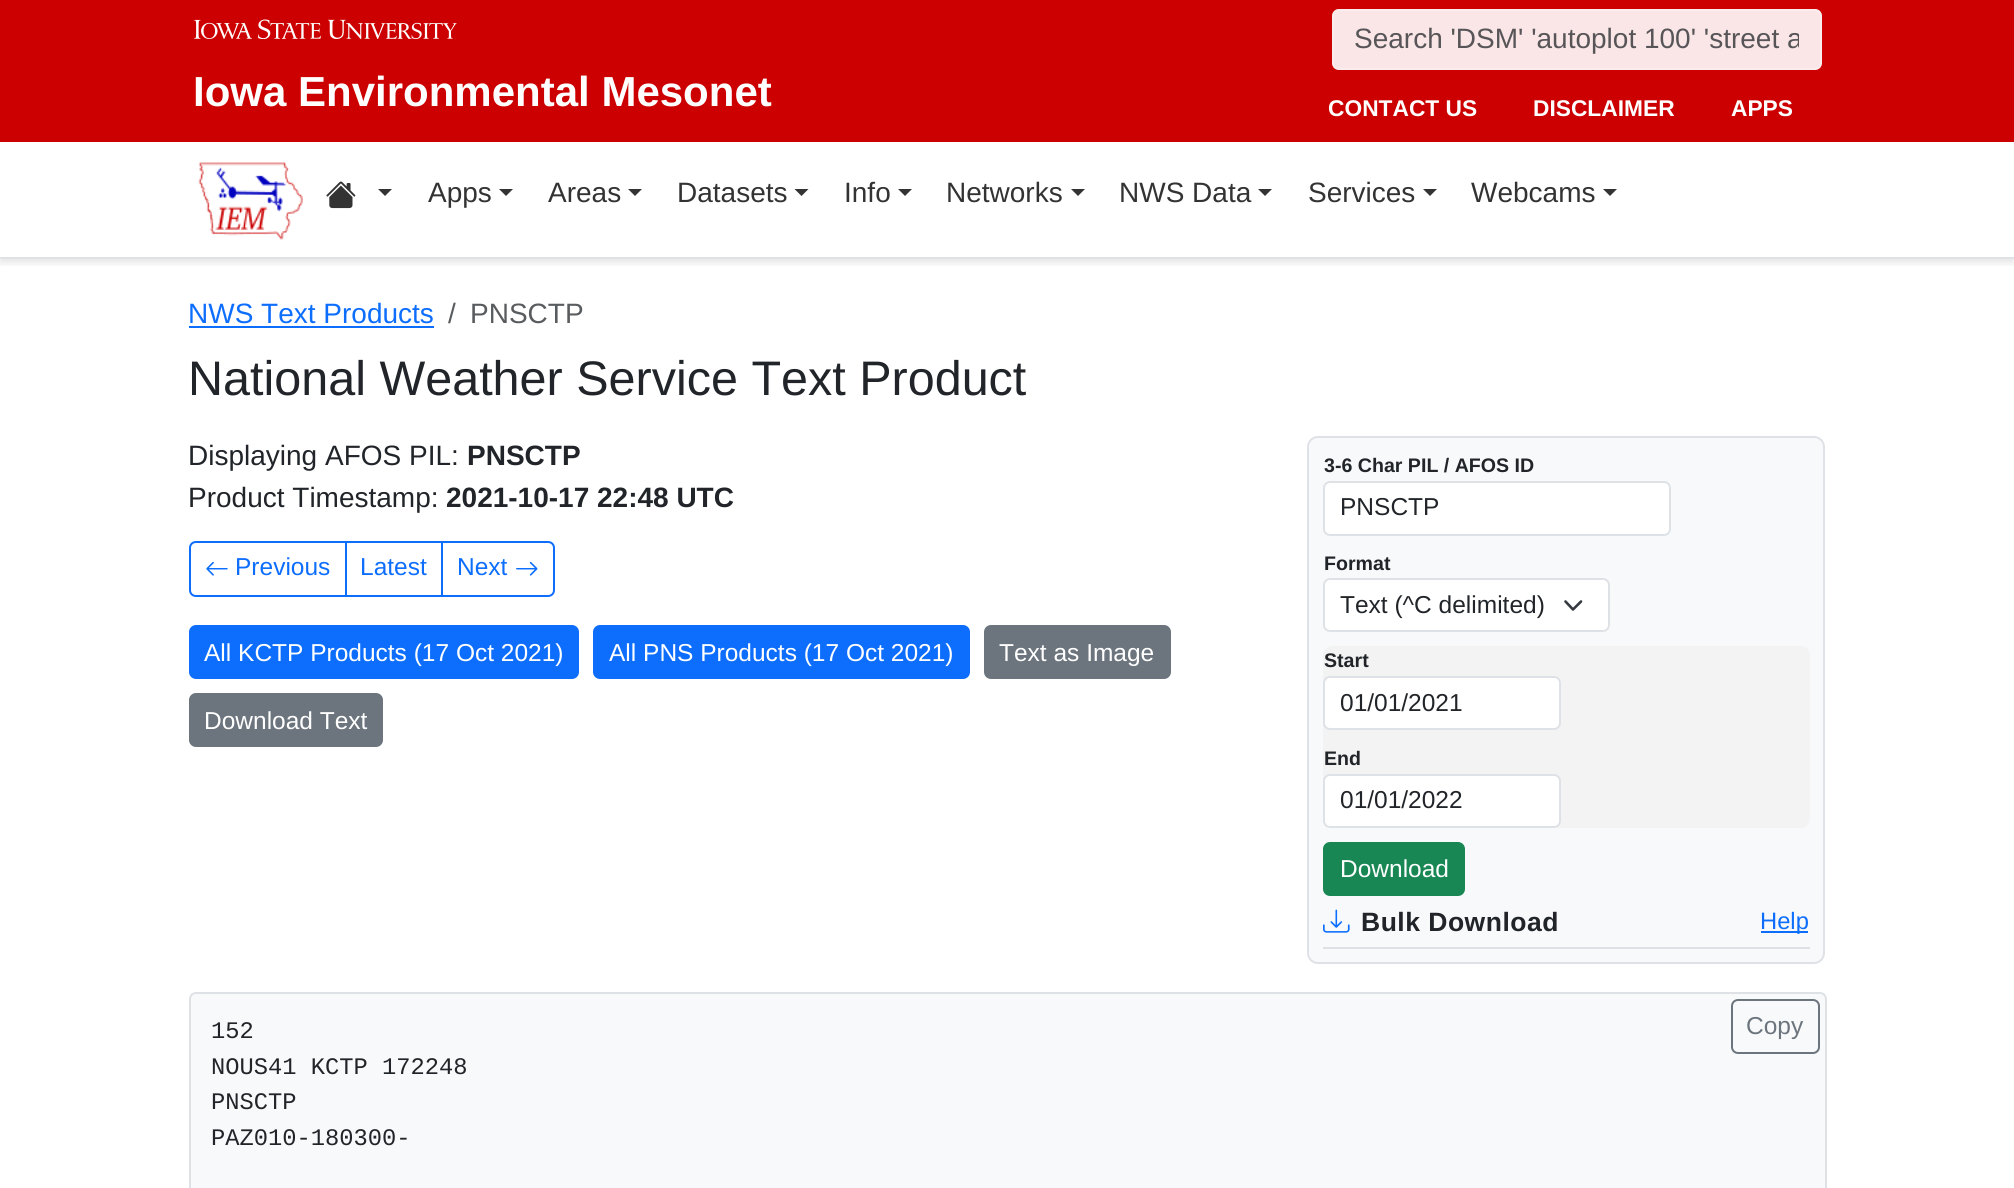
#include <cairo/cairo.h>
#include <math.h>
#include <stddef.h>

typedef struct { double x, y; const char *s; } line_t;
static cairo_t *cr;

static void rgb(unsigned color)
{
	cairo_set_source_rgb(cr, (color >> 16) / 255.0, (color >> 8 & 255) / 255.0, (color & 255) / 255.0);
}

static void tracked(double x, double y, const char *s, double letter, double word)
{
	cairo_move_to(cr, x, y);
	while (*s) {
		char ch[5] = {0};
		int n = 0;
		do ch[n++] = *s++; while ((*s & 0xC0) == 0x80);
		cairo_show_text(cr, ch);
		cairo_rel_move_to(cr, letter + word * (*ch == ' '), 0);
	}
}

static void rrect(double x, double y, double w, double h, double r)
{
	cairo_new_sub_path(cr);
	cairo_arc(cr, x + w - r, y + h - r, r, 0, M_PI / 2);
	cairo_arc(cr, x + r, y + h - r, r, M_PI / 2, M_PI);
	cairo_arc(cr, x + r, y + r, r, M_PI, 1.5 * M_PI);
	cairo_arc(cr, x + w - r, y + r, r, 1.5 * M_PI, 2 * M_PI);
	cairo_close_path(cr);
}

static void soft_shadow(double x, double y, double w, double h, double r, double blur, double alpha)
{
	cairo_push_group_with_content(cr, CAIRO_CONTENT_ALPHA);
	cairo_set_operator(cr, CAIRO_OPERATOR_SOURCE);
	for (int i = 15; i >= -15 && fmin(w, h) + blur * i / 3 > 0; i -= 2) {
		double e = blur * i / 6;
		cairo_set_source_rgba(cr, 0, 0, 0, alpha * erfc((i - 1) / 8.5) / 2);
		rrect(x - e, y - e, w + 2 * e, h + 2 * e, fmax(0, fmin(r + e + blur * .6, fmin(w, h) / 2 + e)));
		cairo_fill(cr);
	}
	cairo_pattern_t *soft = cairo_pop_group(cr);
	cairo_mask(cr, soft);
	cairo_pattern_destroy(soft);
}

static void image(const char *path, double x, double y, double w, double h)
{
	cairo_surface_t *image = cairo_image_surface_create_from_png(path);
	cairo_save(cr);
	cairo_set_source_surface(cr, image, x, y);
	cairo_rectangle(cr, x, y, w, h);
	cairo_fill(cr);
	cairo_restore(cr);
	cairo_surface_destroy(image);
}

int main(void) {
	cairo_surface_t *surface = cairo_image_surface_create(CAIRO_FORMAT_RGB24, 2014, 1188);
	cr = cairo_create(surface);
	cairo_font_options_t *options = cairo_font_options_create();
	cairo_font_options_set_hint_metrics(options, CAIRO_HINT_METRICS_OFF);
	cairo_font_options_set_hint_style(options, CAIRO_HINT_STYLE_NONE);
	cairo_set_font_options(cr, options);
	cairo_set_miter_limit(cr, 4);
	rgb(0xffffff);
	cairo_paint(cr);
	cairo_save(cr);
	cairo_rectangle(cr, 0, 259, 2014, 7);
	cairo_clip(cr);
	rgb(0x000000);
	soft_shadow(0, 145, 2014, 118, 0, 3.5, 0.1);
	cairo_restore(cr);
	rgb(0xcc0000);
	cairo_rectangle(cr, 0, 0, 2014, 142);
	cairo_fill(cr);
	image("img/1.png", 194, 19, 263, 20);
	rgb(0xfae6e6);
	rrect(1332, 9, 490, 61, 7);
	cairo_fill(cr);
	rrect(1333, 10, 488, 59, 6);
	cairo_set_source_rgba(cr, 1, 1, 1, 0.3);
	cairo_stroke(cr);
	rgb(0xdee2e6);
	cairo_rectangle(cr, 0, 257, 2014, 2);
	cairo_fill(cr);
	image("img/2.png", 198, 162, 105, 78);
	image("img/3.png", 326, 181, 30, 28);
	rgb(0x333333);
	cairo_new_path(cr);
	cairo_move_to(cr, 378, 189);
	cairo_line_to(cr, 392, 189);
	cairo_line_to(cr, 385, 196);
	cairo_close_path(cr);
	cairo_fill(cr);
	cairo_new_path(cr);
	cairo_move_to(cr, 499, 189);
	cairo_line_to(cr, 513, 189);
	cairo_line_to(cr, 506, 196);
	cairo_close_path(cr);
	cairo_fill(cr);
	cairo_new_path(cr);
	cairo_move_to(cr, 628, 189);
	cairo_line_to(cr, 642, 189);
	cairo_line_to(cr, 635, 196);
	cairo_close_path(cr);
	cairo_fill(cr);
	cairo_new_path(cr);
	cairo_move_to(cr, 794.5, 189);
	cairo_line_to(cr, 808.5, 189);
	cairo_line_to(cr, 801.5, 196);
	cairo_close_path(cr);
	cairo_fill(cr);
	cairo_new_path(cr);
	cairo_move_to(cr, 898, 189);
	cairo_line_to(cr, 912, 189);
	cairo_line_to(cr, 905, 196);
	cairo_close_path(cr);
	cairo_fill(cr);
	cairo_new_path(cr);
	cairo_move_to(cr, 1071, 189);
	cairo_line_to(cr, 1085, 189);
	cairo_line_to(cr, 1078, 196);
	cairo_close_path(cr);
	cairo_fill(cr);
	cairo_new_path(cr);
	cairo_move_to(cr, 1258, 189);
	cairo_line_to(cr, 1272, 189);
	cairo_line_to(cr, 1265, 196);
	cairo_close_path(cr);
	cairo_fill(cr);
	cairo_new_path(cr);
	cairo_move_to(cr, 1423, 189);
	cairo_line_to(cr, 1437, 189);
	cairo_line_to(cr, 1430, 196);
	cairo_close_path(cr);
	cairo_fill(cr);
	cairo_new_path(cr);
	cairo_move_to(cr, 1603, 189);
	cairo_line_to(cr, 1617, 189);
	cairo_line_to(cr, 1610, 196);
	cairo_close_path(cr);
	cairo_fill(cr);
	rgb(0x0d6efd);
	cairo_rectangle(cr, 189, 326, 245, 2);
	cairo_fill(cr);
	cairo_new_path(cr);
	cairo_move_to(cr, 196, 542);
	cairo_line_to(cr, 346, 542);
	cairo_line_to(cr, 346, 596);
	cairo_line_to(cr, 196, 596);
	cairo_curve_to(cr, 192.5, 596, 190, 593.5, 190, 590);
	cairo_line_to(cr, 190, 548);
	cairo_curve_to(cr, 190, 544.5, 192.5, 542, 196, 542);
	cairo_close_path(cr);
	cairo_stroke(cr);
	image("img/4.png", 206, 561, 22, 15);
	cairo_rectangle(cr, 346, 542, 96, 54);
	cairo_stroke(cr);
	cairo_new_path(cr);
	cairo_move_to(cr, 442, 542);
	cairo_line_to(cr, 548, 542);
	cairo_curve_to(cr, 551.5, 542, 554, 544.5, 554, 548);
	cairo_line_to(cr, 554, 590);
	cairo_curve_to(cr, 554, 593.5, 551.5, 596, 548, 596);
	cairo_line_to(cr, 442, 596);
	cairo_close_path(cr);
	cairo_stroke(cr);
	image("img/5.png", 516, 561, 22, 15);
	rrect(190, 626, 388, 52, 6);
	cairo_fill_preserve(cr);
	cairo_stroke(cr);
	rrect(594, 626, 375, 52, 6);
	cairo_fill_preserve(cr);
	cairo_stroke(cr);
	rgb(0x6c757d);
	rrect(985, 626, 185, 52, 6);
	cairo_fill_preserve(cr);
	cairo_stroke(cr);
	rrect(190, 694, 192, 52, 6);
	cairo_fill_preserve(cr);
	cairo_stroke(cr);
	rgb(0xf8f9fa);
	rrect(1308, 437, 516, 526, 10);
	cairo_fill_preserve(cr);
	rgb(0xdee2e6);
	cairo_stroke(cr);
	rgb(0xffffff);
	rrect(1324, 482, 346, 53, 6);
	cairo_fill_preserve(cr);
	rgb(0xdee2e6);
	cairo_stroke(cr);
	rgb(0xffffff);
	rrect(1323, 578, 287, 54, 7);
	cairo_fill(cr);
	cairo_new_path(cr);
	cairo_move_to(cr, 1565.5, 601.5);
	cairo_line_to(cr, 1573, 609.5);
	cairo_line_to(cr, 1581, 601.5);
	rgb(0x343a40);
	cairo_set_line_width(cr, 2.6);
	cairo_set_line_cap(cr, CAIRO_LINE_CAP_ROUND);
	cairo_set_line_join(cr, CAIRO_LINE_JOIN_ROUND);
	cairo_stroke(cr);
	rrect(1324, 579, 285, 52, 6);
	rgb(0xdee2e6);
	cairo_set_line_width(cr, 2);
	cairo_set_line_cap(cr, CAIRO_LINE_CAP_BUTT);
	cairo_set_line_join(cr, CAIRO_LINE_JOIN_MITER);
	cairo_stroke(cr);
	rgb(0xf3f3f3);
	rrect(1323, 646, 487, 182, 9);
	cairo_fill(cr);
	rgb(0xffffff);
	rrect(1324, 677, 236, 52, 6);
	cairo_fill_preserve(cr);
	rgb(0xdee2e6);
	cairo_stroke(cr);
	rgb(0xffffff);
	rrect(1324, 775, 236, 52, 6);
	cairo_fill_preserve(cr);
	rgb(0xdee2e6);
	cairo_stroke(cr);
	rgb(0x198754);
	rrect(1324, 843, 140, 52, 6);
	cairo_fill_preserve(cr);
	cairo_stroke(cr);
	rgb(0xdee2e6);
	cairo_rectangle(cr, 1323, 947, 487, 2);
	cairo_fill(cr);
	image("img/6.png", 1323, 909, 27, 24);
	rgb(0x0d6efd);
	cairo_rectangle(cr, 1761, 931, 47, 2);
	cairo_fill(cr);
	rgb(0xf8f9fa);
	rrect(190, 993, 1636, 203, 6);
	cairo_fill_preserve(cr);
	rgb(0xdee2e6);
	cairo_stroke(cr);
	rrect(1732, 1000, 87, 53, 6);
	rgb(0x6c757d);
	cairo_stroke(cr);
	cairo_select_font_face(cr, "Liberation Sans", CAIRO_FONT_SLANT_NORMAL, CAIRO_FONT_WEIGHT_BOLD);
	cairo_set_font_size(cr, 42);
	rgb(0xffffff);
	cairo_move_to(cr, 193, 106);
	cairo_show_text(cr, "Iowa Environmental Mesonet");
	cairo_save(cr);
	cairo_rectangle(cr, 1355, 25, 444, 31);
	cairo_clip(cr);
	cairo_select_font_face(cr, "Liberation Sans", CAIRO_FONT_SLANT_NORMAL, CAIRO_FONT_WEIGHT_NORMAL);
	cairo_set_font_size(cr, 28);
	rgb(0x575558);
	cairo_move_to(cr, 1354, 48);
	cairo_show_text(cr, "Search 'DSM' 'autoplot 100' 'street a");
	cairo_restore(cr);
	cairo_set_font_size(cr, 22.75);
	{
		static const line_t items[] = {
			{1328, 116, "CONTACT US"},
			{1533, 116, "DISCLAIMER"},
			{1731, 116, "APPS"},
		};
		for (size_t i = 0; i < sizeof items / sizeof *items; i++) {
			cairo_move_to(cr, items[i].x, items[i].y);
			cairo_show_text(cr, items[i].s);
		}
	}
	cairo_select_font_face(cr, "Liberation Sans", CAIRO_FONT_SLANT_NORMAL, CAIRO_FONT_WEIGHT_NORMAL);
	cairo_set_font_size(cr, 28);
	rgb(0x333333);
	{
		static const line_t items[] = {
			{428, 202, "Apps"},
			{548, 202, "Areas"},
			{677, 202, "Datasets"},
			{844, 202, "Info"},
			{946, 202, "Networks"},
			{1119, 202, "NWS Data"},
			{1308, 202, "Services"},
			{1471, 202, "Webcams"},
		};
		for (size_t i = 0; i < sizeof items / sizeof *items; i++) {
			cairo_move_to(cr, items[i].x, items[i].y);
			cairo_show_text(cr, items[i].s);
		}
	}
	rgb(0x0d6efd);
	cairo_move_to(cr, 188, 323);
	cairo_show_text(cr, "NWS Text Products");
	rgb(0x595c5f);
	cairo_move_to(cr, 448, 323);
	cairo_show_text(cr, "/");
	cairo_move_to(cr, 470, 323);
	cairo_show_text(cr, "PNSCTP");
	cairo_set_font_size(cr, 48.5);
	rgb(0x212529);
	cairo_move_to(cr, 188, 395);
	cairo_show_text(cr, "National Weather Service Text Product");
	cairo_set_font_size(cr, 28);
	cairo_move_to(cr, 188, 465);
	cairo_show_text(cr, "Displaying AFOS PIL:");
	cairo_select_font_face(cr, "Liberation Sans", CAIRO_FONT_SLANT_NORMAL, CAIRO_FONT_WEIGHT_BOLD);
	cairo_move_to(cr, 467, 465);
	cairo_show_text(cr, "PNSCTP");
	cairo_select_font_face(cr, "Liberation Sans", CAIRO_FONT_SLANT_NORMAL, CAIRO_FONT_WEIGHT_NORMAL);
	cairo_move_to(cr, 188, 507);
	cairo_show_text(cr, "Product Timestamp:");
	cairo_select_font_face(cr, "Liberation Sans", CAIRO_FONT_SLANT_NORMAL, CAIRO_FONT_WEIGHT_BOLD);
	cairo_move_to(cr, 446, 507);
	cairo_show_text(cr, "2021-10-17 22:48 UTC");
	cairo_select_font_face(cr, "Liberation Sans", CAIRO_FONT_SLANT_NORMAL, CAIRO_FONT_WEIGHT_NORMAL);
	cairo_set_font_size(cr, 24.5);
	rgb(0x0d6efd);
	{
		static const line_t items[] = {
			{235, 575, "Previous"},
			{360, 575, "Latest"},
			{457, 575, "Next"},
		};
		for (size_t i = 0; i < sizeof items / sizeof *items; i++) {
			cairo_move_to(cr, items[i].x, items[i].y);
			cairo_show_text(cr, items[i].s);
		}
	}
	rgb(0xffffff);
	{
		static const line_t items[] = {
			{204, 661, "All KCTP Products (17 Oct 2021)"},
			{609, 661, "All PNS Products (17 Oct 2021)"},
			{999, 661, "Text as Image"},
			{204, 729, "Download Text"},
		};
		for (size_t i = 0; i < sizeof items / sizeof *items; i++) {
			cairo_move_to(cr, items[i].x, items[i].y);
			cairo_show_text(cr, items[i].s);
		}
	}
	cairo_select_font_face(cr, "Liberation Sans", CAIRO_FONT_SLANT_NORMAL, CAIRO_FONT_WEIGHT_BOLD);
	cairo_set_font_size(cr, 19.6);
	rgb(0x212529);
	cairo_move_to(cr, 1324, 472);
	cairo_show_text(cr, "3-6 Char PIL / AFOS ID");
	cairo_select_font_face(cr, "Liberation Sans", CAIRO_FONT_SLANT_NORMAL, CAIRO_FONT_WEIGHT_NORMAL);
	cairo_set_font_size(cr, 24.5);
	cairo_move_to(cr, 1340, 515);
	cairo_show_text(cr, "PNSCTP");
	cairo_select_font_face(cr, "Liberation Sans", CAIRO_FONT_SLANT_NORMAL, CAIRO_FONT_WEIGHT_BOLD);
	cairo_set_font_size(cr, 19.6);
	cairo_move_to(cr, 1324, 570);
	cairo_show_text(cr, "Format");
	cairo_select_font_face(cr, "Liberation Sans", CAIRO_FONT_SLANT_NORMAL, CAIRO_FONT_WEIGHT_NORMAL);
	cairo_set_font_size(cr, 24.5);
	cairo_move_to(cr, 1340, 613);
	cairo_show_text(cr, "Text (^C delimited)");
	cairo_select_font_face(cr, "Liberation Sans", CAIRO_FONT_SLANT_NORMAL, CAIRO_FONT_WEIGHT_BOLD);
	cairo_set_font_size(cr, 19.6);
	cairo_move_to(cr, 1324, 667);
	cairo_show_text(cr, "Start");
	cairo_select_font_face(cr, "Liberation Sans", CAIRO_FONT_SLANT_NORMAL, CAIRO_FONT_WEIGHT_NORMAL);
	cairo_set_font_size(cr, 24.5);
	cairo_move_to(cr, 1340, 711);
	cairo_show_text(cr, "01/01/2021");
	cairo_select_font_face(cr, "Liberation Sans", CAIRO_FONT_SLANT_NORMAL, CAIRO_FONT_WEIGHT_BOLD);
	cairo_set_font_size(cr, 19.6);
	cairo_move_to(cr, 1324, 765);
	cairo_show_text(cr, "End");
	cairo_select_font_face(cr, "Liberation Sans", CAIRO_FONT_SLANT_NORMAL, CAIRO_FONT_WEIGHT_NORMAL);
	cairo_set_font_size(cr, 24.5);
	cairo_move_to(cr, 1340, 808);
	cairo_show_text(cr, "01/01/2022");
	rgb(0xffffff);
	cairo_move_to(cr, 1340, 877);
	cairo_show_text(cr, "Download");
	cairo_select_font_face(cr, "Liberation Sans", CAIRO_FONT_SLANT_NORMAL, CAIRO_FONT_WEIGHT_BOLD);
	cairo_set_font_size(cr, 26.5);
	rgb(0x212529);
	tracked(1361, 931, "Bulk Download", 0.5, 0);
	cairo_select_font_face(cr, "Liberation Sans", CAIRO_FONT_SLANT_NORMAL, CAIRO_FONT_WEIGHT_NORMAL);
	cairo_set_font_size(cr, 23.75);
	rgb(0x0d6efd);
	cairo_move_to(cr, 1760, 929);
	cairo_show_text(cr, "Help");
	cairo_select_font_face(cr, "Liberation Mono", CAIRO_FONT_SLANT_NORMAL, CAIRO_FONT_WEIGHT_NORMAL);
	rgb(0x212529);
	{
		static const line_t items[] = {
			{211, 1038, "152"},
			{211, 1074, "NOUS41 KCTP 172248"},
			{211, 1109, "PNSCTP"},
			{211, 1145, "PAZ010-180300-"},
		};
		for (size_t i = 0; i < sizeof items / sizeof *items; i++) {
			cairo_move_to(cr, items[i].x, items[i].y);
			cairo_show_text(cr, items[i].s);
		}
	}
	cairo_select_font_face(cr, "Liberation Sans", CAIRO_FONT_SLANT_NORMAL, CAIRO_FONT_WEIGHT_NORMAL);
	cairo_set_font_size(cr, 24.5);
	rgb(0x6c757d);
	cairo_move_to(cr, 1746, 1034);
	cairo_show_text(cr, "Copy");
	cairo_surface_write_to_png(surface, "page.png");
	cairo_font_options_destroy(options);
	cairo_destroy(cr);
	cairo_surface_destroy(surface);
	return 0;
}
